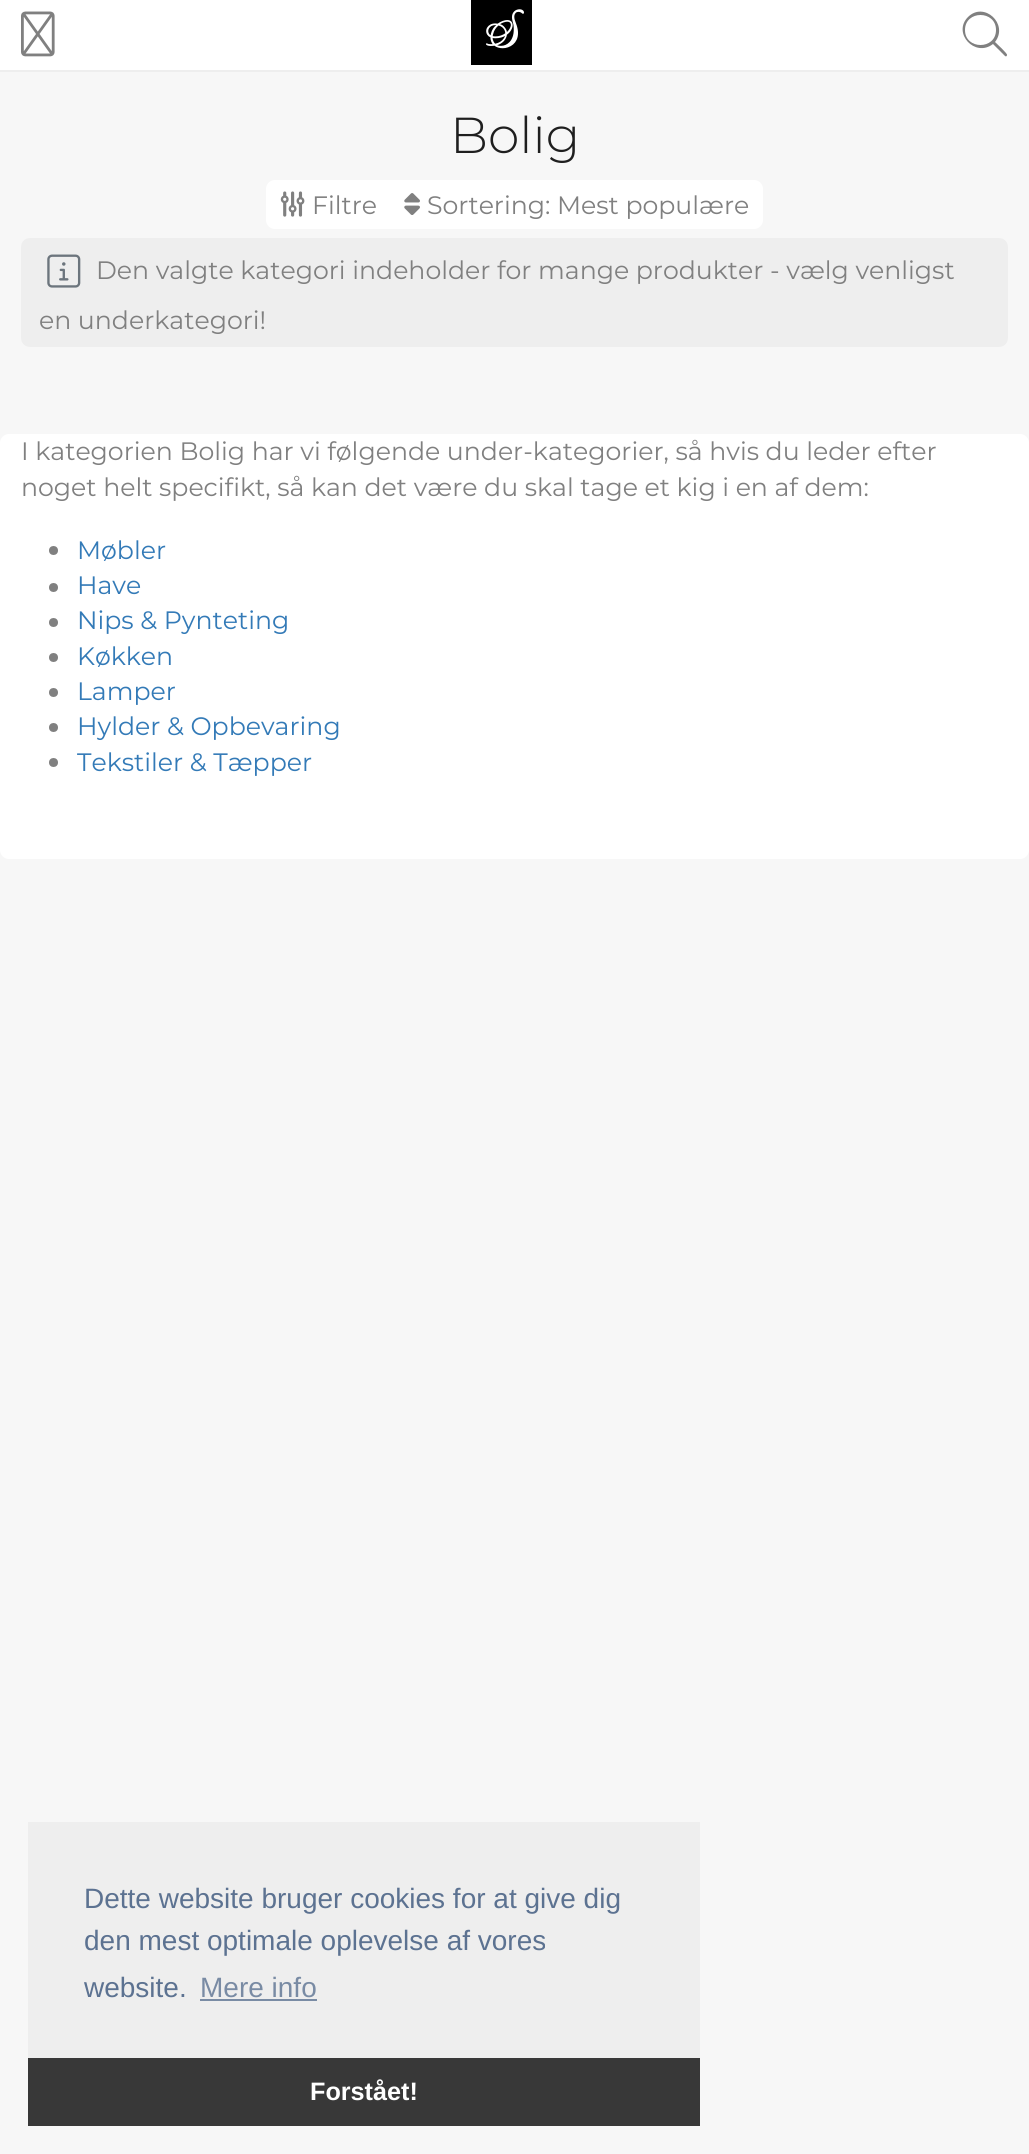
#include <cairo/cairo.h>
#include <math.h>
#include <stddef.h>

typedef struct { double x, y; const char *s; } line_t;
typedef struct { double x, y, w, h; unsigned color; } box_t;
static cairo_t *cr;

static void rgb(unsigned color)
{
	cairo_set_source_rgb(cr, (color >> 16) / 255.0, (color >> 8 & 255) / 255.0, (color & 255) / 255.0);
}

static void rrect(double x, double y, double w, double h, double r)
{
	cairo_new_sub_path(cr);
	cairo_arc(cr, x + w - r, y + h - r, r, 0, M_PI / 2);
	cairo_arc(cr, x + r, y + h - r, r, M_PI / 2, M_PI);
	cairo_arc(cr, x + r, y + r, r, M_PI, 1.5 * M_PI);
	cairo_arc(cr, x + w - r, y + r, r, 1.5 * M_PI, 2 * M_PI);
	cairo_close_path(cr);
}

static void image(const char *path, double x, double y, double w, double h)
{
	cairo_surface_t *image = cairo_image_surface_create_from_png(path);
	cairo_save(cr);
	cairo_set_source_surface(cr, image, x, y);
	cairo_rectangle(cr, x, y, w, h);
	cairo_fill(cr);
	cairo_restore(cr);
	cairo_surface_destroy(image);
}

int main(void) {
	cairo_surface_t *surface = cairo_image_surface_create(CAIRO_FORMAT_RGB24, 1029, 2154);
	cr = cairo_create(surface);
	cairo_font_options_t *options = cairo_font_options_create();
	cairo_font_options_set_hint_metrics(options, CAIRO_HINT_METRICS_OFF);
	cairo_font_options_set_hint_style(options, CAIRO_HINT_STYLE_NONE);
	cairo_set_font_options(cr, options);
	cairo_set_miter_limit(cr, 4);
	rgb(0xf7f7f7);
	cairo_paint(cr);
	rgb(0xffffff);
	cairo_rectangle(cr, 0, 0, 1029, 70);
	cairo_fill(cr);
	rgb(0xeeeeee);
	cairo_rectangle(cr, 0, 70, 1029, 2);
	cairo_fill(cr);
	image("img/1.png", 21, 11, 34, 46);
	rgb(0x000000);
	cairo_rectangle(cr, 471, 0, 61, 65);
	cairo_fill(cr);
	rgb(0x808080);
	cairo_new_path(cr);
	cairo_move_to(cr, 996, 30);
	cairo_curve_to(cr, 996, 10, 965, 10, 965, 30);
	cairo_curve_to(cr, 965, 50, 996, 50, 996, 30);
	cairo_close_path(cr);
	cairo_move_to(cr, 993, 44);
	cairo_curve_to(cr, 975, 58, 952, 33, 968, 17);
	cairo_curve_to(cr, 984, 1, 1009, 24, 995, 42);
	cairo_curve_to(cr, 996, 43, 1008, 54, 1007, 55);
	cairo_curve_to(cr, 1007, 56, 1006, 57, 1005, 56);
	cairo_close_path(cr);
	cairo_fill(cr);
	rgb(0xffffff);
	cairo_new_path(cr);
	cairo_move_to(cr, 275, 180);
	cairo_line_to(cr, 390, 180);
	cairo_line_to(cr, 390, 229);
	cairo_line_to(cr, 275, 229);
	cairo_curve_to(cr, 270, 229, 266, 225, 266, 220);
	cairo_line_to(cr, 266, 189);
	cairo_curve_to(cr, 266, 184, 270, 180, 275, 180);
	cairo_close_path(cr);
	cairo_fill(cr);
	image("img/2.png", 280, 191, 25, 26);
	cairo_new_path(cr);
	cairo_move_to(cr, 390, 180);
	cairo_line_to(cr, 754, 180);
	cairo_curve_to(cr, 759, 180, 763, 184, 763, 189);
	cairo_line_to(cr, 763, 220);
	cairo_curve_to(cr, 763, 225, 759, 229, 754, 229);
	cairo_line_to(cr, 390, 229);
	cairo_close_path(cr);
	cairo_fill(cr);
	image("img/3.png", 404, 193, 16, 22);
	rgb(0xeeeeee);
	rrect(21, 238, 987, 109, 9);
	cairo_fill(cr);
	image("img/4.png", 47, 254, 34, 34);
	rgb(0xffffff);
	rrect(0, 434, 1029, 425, 9);
	cairo_fill(cr);
	rgb(0x808080);
	cairo_arc(cr, 53.5, 550.5, 4.5, 0, 2 * M_PI);
	cairo_fill(cr);
	cairo_arc(cr, 53.5, 587.5, 4.5, 0, 2 * M_PI);
	cairo_fill(cr);
	cairo_arc(cr, 53.5, 622.5, 4.5, 0, 2 * M_PI);
	cairo_fill(cr);
	cairo_arc(cr, 53.5, 657.5, 4.5, 0, 2 * M_PI);
	cairo_fill(cr);
	cairo_arc(cr, 53.5, 692.5, 4.5, 0, 2 * M_PI);
	cairo_fill(cr);
	cairo_arc(cr, 53.5, 727.5, 4.5, 0, 2 * M_PI);
	cairo_fill(cr);
	cairo_arc(cr, 53.5, 762.5, 4.5, 0, 2 * M_PI);
	cairo_fill(cr);
	{
		static const box_t items[] = {
			{28, 1822, 672, 236, 0xeeeeee},
			{200, 1999, 117, 2, 0x798ba4},
			{28, 2058, 672, 68, 0x383838},
		};
		for (size_t i = 0; i < sizeof items / sizeof *items; i++) {
			rgb(items[i].color);
			cairo_rectangle(cr, items[i].x, items[i].y, items[i].w, items[i].h);
			cairo_fill(cr);
		}
	}
	cairo_select_font_face(cr, "Mea Culpa", CAIRO_FONT_SLANT_NORMAL, CAIRO_FONT_WEIGHT_BOLD);
	cairo_set_font_size(cr, 42);
	rgb(0xffffff);
	cairo_move_to(cr, 485, 44);
	cairo_show_text(cr, "S");
	cairo_select_font_face(cr, "Montserrat Light", CAIRO_FONT_SLANT_NORMAL, CAIRO_FONT_WEIGHT_NORMAL);
	cairo_set_font_size(cr, 50.5);
	rgb(0x1f1f1f);
	cairo_move_to(cr, 450, 153);
	cairo_show_text(cr, "Bolig");
	cairo_select_font_face(cr, "Montserrat", CAIRO_FONT_SLANT_NORMAL, CAIRO_FONT_WEIGHT_NORMAL);
	cairo_set_font_size(cr, 25.2);
	rgb(0x808080);
	{
		static const line_t items[] = {
			{312, 214, "Filtre"},
			{427, 214, "Sortering: Mest populære"},
			{96, 279, "Den valgte kategori indeholder for mange produkter - vælg venligst"},
			{39, 329, "en underkategori!"},
			{21, 460, "I kategorien Bolig har vi følgende under-kategorier, så hvis du leder efter"},
			{21, 496, "noget helt specifikt, så kan det være du skal tage et kig i en af dem:"},
		};
		for (size_t i = 0; i < sizeof items / sizeof *items; i++) {
			cairo_move_to(cr, items[i].x, items[i].y);
			cairo_show_text(cr, items[i].s);
		}
	}
	rgb(0x337ab7);
	{
		static const line_t items[] = {
			{77, 559, "Møbler"},
			{77, 594, "Have"},
			{77, 629, "Nips & Pynteting"},
			{77, 665, "Køkken"},
			{77, 700, "Lamper"},
			{77, 735, "Hylder & Opbevaring"},
			{77, 771, "Tekstiler & Tæpper"},
		};
		for (size_t i = 0; i < sizeof items / sizeof *items; i++) {
			cairo_move_to(cr, items[i].x, items[i].y);
			cairo_show_text(cr, items[i].s);
		}
	}
	cairo_select_font_face(cr, "Liberation Sans", CAIRO_FONT_SLANT_NORMAL, CAIRO_FONT_WEIGHT_NORMAL);
	cairo_set_font_size(cr, 28);
	rgb(0x5c7291);
	{
		static const line_t items[] = {
			{84, 1908, "Dette website bruger cookies for at give dig"},
			{84, 1950, "den mest optimale oplevelse af vores"},
			{84, 1997, "website."},
		};
		for (size_t i = 0; i < sizeof items / sizeof *items; i++) {
			cairo_move_to(cr, items[i].x, items[i].y);
			cairo_show_text(cr, items[i].s);
		}
	}
	rgb(0x798ba4);
	cairo_move_to(cr, 200, 1997);
	cairo_show_text(cr, "Mere info");
	cairo_select_font_face(cr, "Liberation Sans", CAIRO_FONT_SLANT_NORMAL, CAIRO_FONT_WEIGHT_BOLD);
	cairo_set_font_size(cr, 25.2);
	rgb(0xffffff);
	cairo_move_to(cr, 310, 2100);
	cairo_show_text(cr, "Forstået!");
	cairo_surface_write_to_png(surface, "page.png");
	cairo_font_options_destroy(options);
	cairo_destroy(cr);
	cairo_surface_destroy(surface);
	return 0;
}
